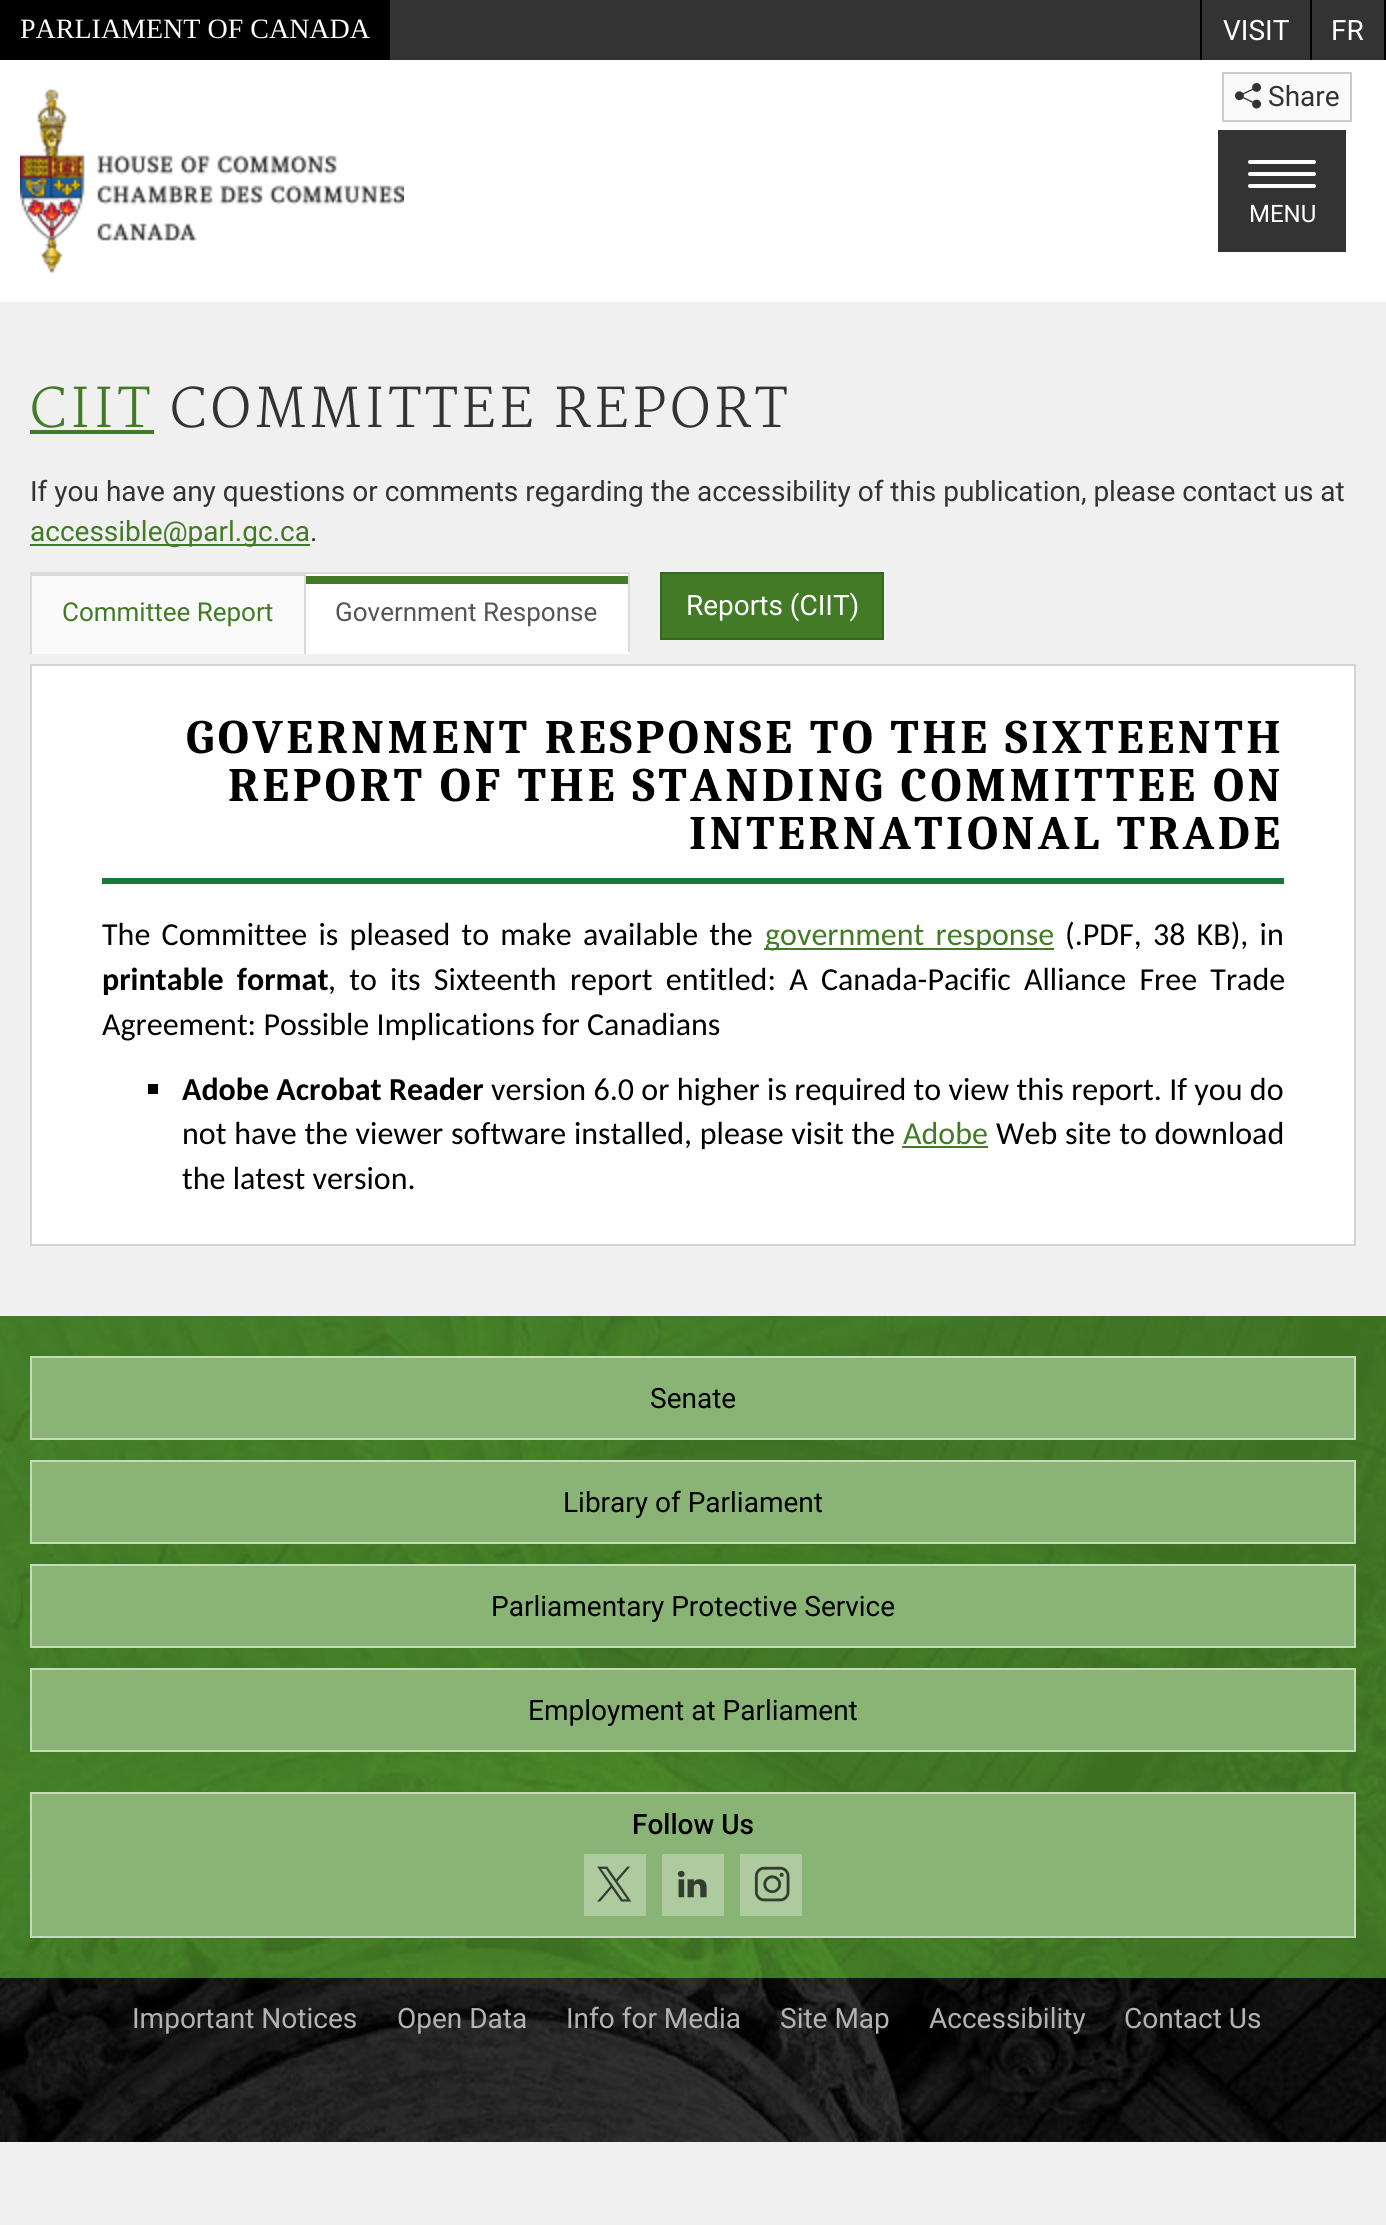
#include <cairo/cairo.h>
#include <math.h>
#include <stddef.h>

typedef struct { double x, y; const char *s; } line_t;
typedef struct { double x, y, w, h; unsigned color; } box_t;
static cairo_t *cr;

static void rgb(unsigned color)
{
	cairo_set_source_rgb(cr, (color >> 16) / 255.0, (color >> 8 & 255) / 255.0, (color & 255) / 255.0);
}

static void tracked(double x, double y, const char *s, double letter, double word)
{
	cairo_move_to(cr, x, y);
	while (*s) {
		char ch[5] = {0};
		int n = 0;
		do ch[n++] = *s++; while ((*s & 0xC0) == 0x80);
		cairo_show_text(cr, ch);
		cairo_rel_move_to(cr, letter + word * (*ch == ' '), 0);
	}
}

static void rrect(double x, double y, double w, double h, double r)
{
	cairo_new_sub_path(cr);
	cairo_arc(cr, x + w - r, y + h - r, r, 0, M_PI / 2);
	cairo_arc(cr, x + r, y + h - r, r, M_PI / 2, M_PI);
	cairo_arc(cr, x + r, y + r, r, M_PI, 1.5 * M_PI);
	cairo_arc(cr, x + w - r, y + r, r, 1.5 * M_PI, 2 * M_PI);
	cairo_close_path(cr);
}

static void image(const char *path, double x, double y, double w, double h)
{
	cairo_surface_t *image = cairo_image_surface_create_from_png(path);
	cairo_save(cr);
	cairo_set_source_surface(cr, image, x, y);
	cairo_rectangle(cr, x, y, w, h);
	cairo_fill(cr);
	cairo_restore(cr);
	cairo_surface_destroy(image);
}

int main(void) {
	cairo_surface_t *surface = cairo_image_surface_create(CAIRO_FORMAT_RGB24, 1386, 2225);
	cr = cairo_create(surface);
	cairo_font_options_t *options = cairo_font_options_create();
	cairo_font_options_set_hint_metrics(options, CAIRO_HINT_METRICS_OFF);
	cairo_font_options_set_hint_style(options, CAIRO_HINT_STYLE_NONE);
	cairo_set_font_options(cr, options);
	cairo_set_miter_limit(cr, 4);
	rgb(0xf0f0f0);
	cairo_paint(cr);
	{
		static const box_t items[] = {
			{390, 0, 994, 60, 0x333333},
			{0, 0, 390, 60, 0x000000},
			{1200, 0, 2, 60, 0x000000},
			{1384, 0, 2, 60, 0x000000},
			{1310, 0, 2, 60, 0x000000},
			{0, 60, 1386, 242, 0xffffff},
		};
		for (size_t i = 0; i < sizeof items / sizeof *items; i++) {
			rgb(items[i].color);
			cairo_rectangle(cr, items[i].x, items[i].y, items[i].w, items[i].h);
			cairo_fill(cr);
		}
	}
	rgb(0xfafafa);
	cairo_rectangle(cr, 1223, 73, 128, 48);
	cairo_fill_preserve(cr);
	rgb(0xcccccc);
	cairo_stroke(cr);
	image("img/1.png", 1235, 83, 26, 26);
	image("img/2.png", 20, 89, 384, 184);
	rgb(0x333333);
	cairo_rectangle(cr, 1218, 130, 128, 122);
	cairo_fill(cr);
	rgb(0xffffff);
	rrect(1248, 160, 68, 4, 2);
	cairo_fill(cr);
	rrect(1248, 172, 68, 4, 2);
	cairo_fill(cr);
	rrect(1248, 184, 68, 4, 2);
	cairo_fill(cr);
	{
		static const box_t items[] = {
			{30, 430, 124, 4, 0x427a26},
			{30, 544, 280, 2, 0x427a26},
			{32, 576, 272, 78, 0xfafafa},
			{30, 572, 600, 2, 0xdadada},
			{304, 572, 2, 82, 0xdadada},
			{30, 572, 2, 82, 0xdadada},
			{32, 574, 272, 2, 0xdadada},
			{306, 574, 322, 78, 0xffffff},
			{628, 572, 2, 82, 0xdadada},
			{306, 652, 324, 2, 0xffffff},
			{306, 576, 322, 8, 0x427a26},
		};
		for (size_t i = 0; i < sizeof items / sizeof *items; i++) {
			rgb(items[i].color);
			cairo_rectangle(cr, items[i].x, items[i].y, items[i].w, items[i].h);
			cairo_fill(cr);
		}
	}
	cairo_rectangle(cr, 661, 573, 222, 66);
	cairo_fill_preserve(cr);
	rgb(0x376720);
	cairo_stroke(cr);
	rgb(0xffffff);
	cairo_rectangle(cr, 31, 665, 1324, 580);
	cairo_fill_preserve(cr);
	rgb(0xd3d3d3);
	cairo_stroke(cr);
	{
		static const box_t items[] = {
			{102, 878, 1182, 6, 0x16793c},
			{764, 948, 290, 2, 0x427a26},
			{148, 1084, 10, 10, 0x000000},
			{902, 1146, 86, 2, 0x427a26},
		};
		for (size_t i = 0; i < sizeof items / sizeof *items; i++) {
			rgb(items[i].color);
			cairo_rectangle(cr, items[i].x, items[i].y, items[i].w, items[i].h);
			cairo_fill(cr);
		}
	}
	image("img/3.png", 0, 1316, 1386, 662);
	rgb(0x8ab476);
	cairo_rectangle(cr, 31, 1357, 1324, 82);
	cairo_fill_preserve(cr);
	rgb(0xc5dabb);
	cairo_stroke(cr);
	rgb(0x8ab476);
	cairo_rectangle(cr, 31, 1461, 1324, 82);
	cairo_fill_preserve(cr);
	rgb(0xc5dabb);
	cairo_stroke(cr);
	rgb(0x8ab476);
	cairo_rectangle(cr, 31, 1565, 1324, 82);
	cairo_fill_preserve(cr);
	rgb(0xc5dabb);
	cairo_stroke(cr);
	rgb(0x8ab476);
	cairo_rectangle(cr, 31, 1669, 1324, 82);
	cairo_fill_preserve(cr);
	rgb(0xc5dabb);
	cairo_stroke(cr);
	rgb(0x8ab476);
	cairo_rectangle(cr, 31, 1793, 1324, 144);
	cairo_fill_preserve(cr);
	rgb(0xc5dabb);
	cairo_stroke(cr);
	rgb(0xadcb9f);
	cairo_rectangle(cr, 584, 1854, 62, 62);
	cairo_fill(cr);
	image("img/4.png", 597, 1866, 35, 36);
	cairo_rectangle(cr, 662, 1854, 62, 62);
	cairo_fill(cr);
	image("img/5.png", 677, 1870, 30, 28);
	cairo_rectangle(cr, 740, 1854, 62, 62);
	cairo_fill(cr);
	image("img/6.png", 754, 1866, 36, 36);
	image("img/7.png", 0, 1978, 1386, 164);
	cairo_select_font_face(cr, "Liberation Serif", CAIRO_FONT_SLANT_NORMAL, CAIRO_FONT_WEIGHT_NORMAL);
	cairo_set_font_size(cr, 28);
	rgb(0xffffff);
	cairo_move_to(cr, 20, 38);
	cairo_show_text(cr, "PARLIAMENT OF CANADA");
	cairo_select_font_face(cr, "Roboto", CAIRO_FONT_SLANT_NORMAL, CAIRO_FONT_WEIGHT_NORMAL);
	cairo_move_to(cr, 1223, 40);
	cairo_show_text(cr, "VISIT");
	cairo_move_to(cr, 1331, 40);
	cairo_show_text(cr, "FR");
	rgb(0x333333);
	cairo_move_to(cr, 1268, 106);
	cairo_show_text(cr, "Share");
	cairo_set_font_size(cr, 24);
	rgb(0xffffff);
	cairo_move_to(cr, 1249, 222);
	cairo_show_text(cr, "MENU");
	cairo_select_font_face(cr, "Martel Light", CAIRO_FONT_SLANT_NORMAL, CAIRO_FONT_WEIGHT_NORMAL);
	cairo_set_font_size(cr, 53.25);
	rgb(0x427a26);
	tracked(30, 427, "CIIT", 4, 0);
	rgb(0x333333);
	tracked(170, 427, "COMMITTEE REPORT", 4, 0);
	cairo_select_font_face(cr, "Roboto", CAIRO_FONT_SLANT_NORMAL, CAIRO_FONT_WEIGHT_NORMAL);
	cairo_set_font_size(cr, 28);
	cairo_move_to(cr, 30, 501);
	cairo_show_text(cr, "If you have any questions or comments regarding the accessibility of this publication, please contact us at");
	rgb(0x427a26);
	cairo_move_to(cr, 30, 541);
	cairo_show_text(cr, "accessible@parl.gc.ca");
	rgb(0x333333);
	cairo_move_to(cr, 310, 541);
	cairo_show_text(cr, ".");
	cairo_set_font_size(cr, 26);
	rgb(0x427a26);
	cairo_move_to(cr, 62, 621);
	cairo_show_text(cr, "Committee Report");
	rgb(0x555555);
	cairo_move_to(cr, 335, 621);
	cairo_show_text(cr, "Government Response");
	cairo_set_font_size(cr, 28);
	rgb(0xffffff);
	cairo_move_to(cr, 686, 615);
	cairo_show_text(cr, "Reports (CIIT)");
	cairo_select_font_face(cr, "Caladea", CAIRO_FONT_SLANT_NORMAL, CAIRO_FONT_WEIGHT_BOLD);
	cairo_set_font_size(cr, 48);
	rgb(0x000000);
	{
		static const line_t items[] = {
			{186, 753, "GOVERNMENT RESPONSE TO THE SIXTEENTH"},
			{228, 801, "REPORT OF THE STANDING COMMITTEE ON"},
			{689, 849, "INTERNATIONAL TRADE"},
		};
		for (size_t i = 0; i < sizeof items / sizeof *items; i++) {
			tracked(items[i].x, items[i].y, items[i].s, 3.6, 0);
		}
	}
	cairo_select_font_face(cr, "Carlito", CAIRO_FONT_SLANT_NORMAL, CAIRO_FONT_WEIGHT_NORMAL);
	cairo_set_font_size(cr, 32);
	tracked(102, 945, "The Committee is pleased to make available the", 0, 4);
	rgb(0x427a26);
	tracked(765, 945, "government response", 0, 4);
	rgb(0x000000);
	tracked(1065, 945, "(.PDF, 38 KB), in", 0, 4);
	cairo_select_font_face(cr, "Carlito", CAIRO_FONT_SLANT_NORMAL, CAIRO_FONT_WEIGHT_BOLD);
	tracked(102, 990, "printable format", 0, 6);
	cairo_select_font_face(cr, "Carlito", CAIRO_FONT_SLANT_NORMAL, CAIRO_FONT_WEIGHT_NORMAL);
	tracked(328, 990, ", to its Sixteenth report entitled: A Canada-Pacific Alliance Free Trade", 0, 6);
	cairo_move_to(cr, 102, 1035);
	cairo_show_text(cr, "Agreement: Possible Implications for Canadians");
	cairo_select_font_face(cr, "Carlito", CAIRO_FONT_SLANT_NORMAL, CAIRO_FONT_WEIGHT_BOLD);
	cairo_move_to(cr, 182, 1100);
	cairo_show_text(cr, "Adobe Acrobat Reader");
	cairo_select_font_face(cr, "Carlito", CAIRO_FONT_SLANT_NORMAL, CAIRO_FONT_WEIGHT_NORMAL);
	tracked(491, 1100, "version 6.0 or higher is required to view this report. If you do", 0, 0.1);
	tracked(182, 1144, "not have the viewer software installed, please visit the", 0, 0.5);
	rgb(0x427a26);
	cairo_move_to(cr, 903, 1144);
	cairo_show_text(cr, "Adobe");
	rgb(0x000000);
	tracked(996, 1144, "Web site to download", 0, 0.5);
	cairo_move_to(cr, 182, 1189);
	cairo_show_text(cr, "the latest version.");
	cairo_select_font_face(cr, "Roboto", CAIRO_FONT_SLANT_NORMAL, CAIRO_FONT_WEIGHT_NORMAL);
	cairo_set_font_size(cr, 28);
	{
		static const line_t items[] = {
			{650, 1408, "Senate"},
			{563, 1512, "Library of Parliament"},
			{491, 1616, "Parliamentary Protective Service"},
			{528, 1720, "Employment at Parliament"},
		};
		for (size_t i = 0; i < sizeof items / sizeof *items; i++) {
			cairo_move_to(cr, items[i].x, items[i].y);
			cairo_show_text(cr, items[i].s);
		}
	}
	cairo_select_font_face(cr, "Roboto Medium", CAIRO_FONT_SLANT_NORMAL, CAIRO_FONT_WEIGHT_NORMAL);
	cairo_move_to(cr, 632, 1834);
	cairo_show_text(cr, "Follow Us");
	cairo_select_font_face(cr, "Roboto", CAIRO_FONT_SLANT_NORMAL, CAIRO_FONT_WEIGHT_NORMAL);
	rgb(0xb3b3b3);
	{
		static const line_t items[] = {
			{132, 2028, "Important Notices"},
			{397, 2028, "Open Data"},
			{566, 2028, "Info for Media"},
			{780, 2028, "Site Map"},
			{929, 2028, "Accessibility"},
			{1124, 2028, "Contact Us"},
		};
		for (size_t i = 0; i < sizeof items / sizeof *items; i++) {
			cairo_move_to(cr, items[i].x, items[i].y);
			cairo_show_text(cr, items[i].s);
		}
	}
	cairo_surface_write_to_png(surface, "page.png");
	cairo_font_options_destroy(options);
	cairo_destroy(cr);
	cairo_surface_destroy(surface);
	return 0;
}
